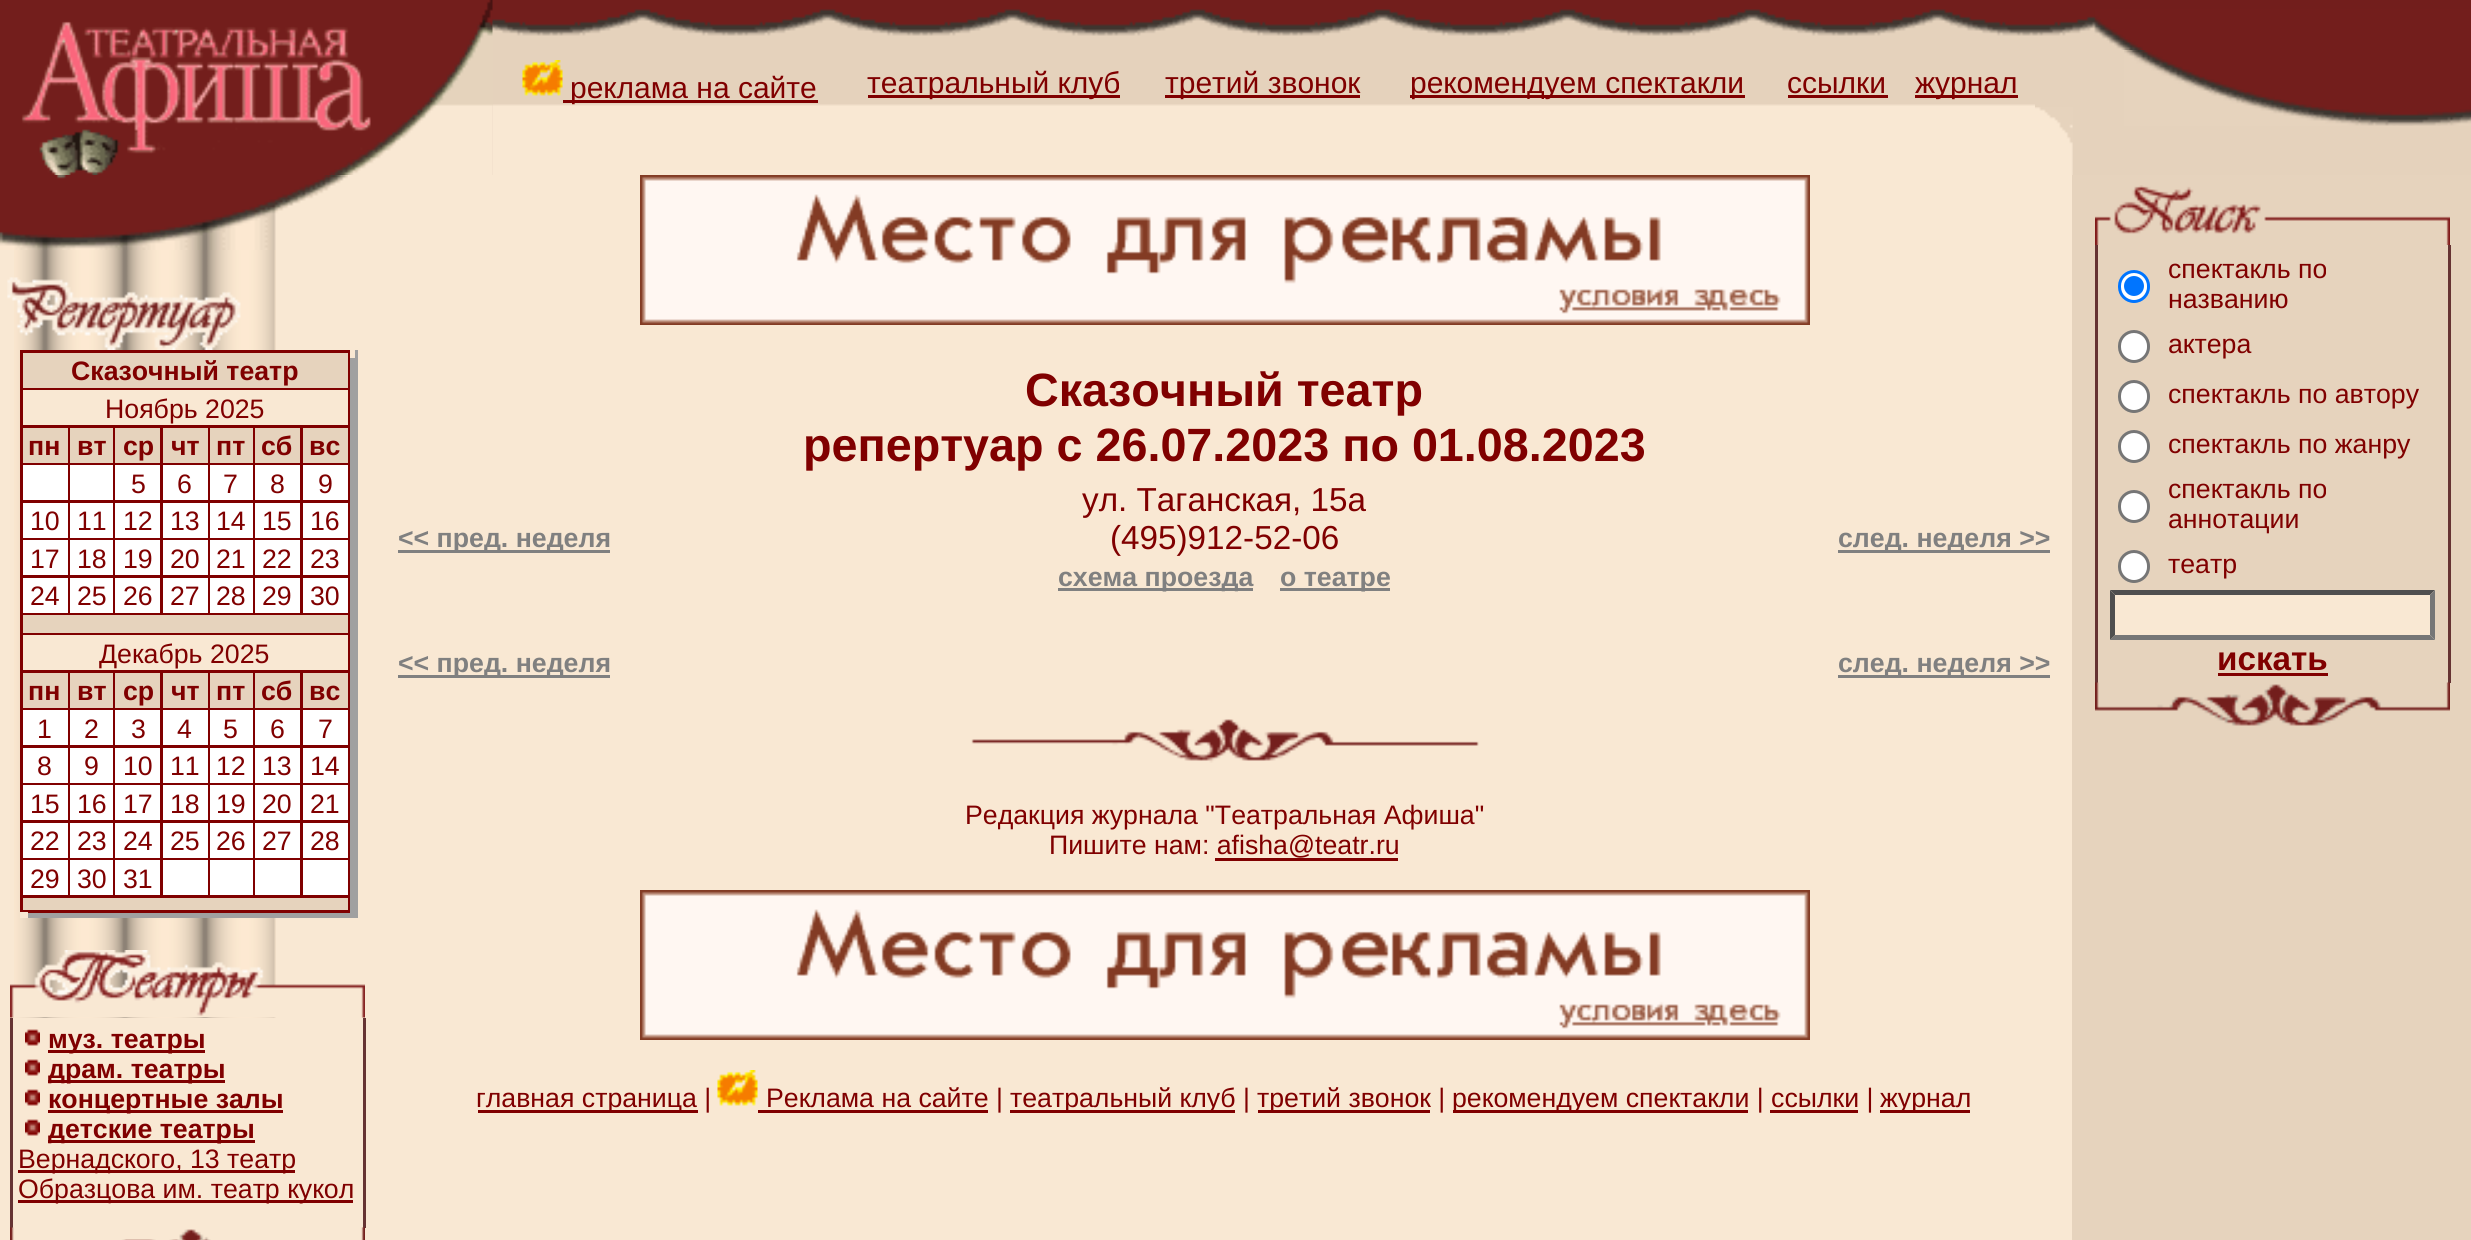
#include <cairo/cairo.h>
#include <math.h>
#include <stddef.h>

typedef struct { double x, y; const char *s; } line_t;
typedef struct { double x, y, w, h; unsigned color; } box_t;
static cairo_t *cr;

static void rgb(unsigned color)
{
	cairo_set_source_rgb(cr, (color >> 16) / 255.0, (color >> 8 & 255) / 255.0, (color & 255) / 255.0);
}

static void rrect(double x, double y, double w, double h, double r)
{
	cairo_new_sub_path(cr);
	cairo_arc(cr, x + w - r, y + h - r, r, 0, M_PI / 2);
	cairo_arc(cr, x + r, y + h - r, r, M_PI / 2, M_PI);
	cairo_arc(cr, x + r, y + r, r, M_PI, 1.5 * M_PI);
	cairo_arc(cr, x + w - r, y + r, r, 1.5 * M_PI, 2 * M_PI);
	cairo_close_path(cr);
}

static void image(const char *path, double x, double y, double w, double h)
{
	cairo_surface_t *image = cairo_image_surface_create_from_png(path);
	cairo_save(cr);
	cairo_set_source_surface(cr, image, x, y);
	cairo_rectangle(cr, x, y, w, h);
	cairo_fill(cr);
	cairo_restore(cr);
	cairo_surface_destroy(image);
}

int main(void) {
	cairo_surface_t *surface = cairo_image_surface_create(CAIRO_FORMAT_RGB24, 2471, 1240);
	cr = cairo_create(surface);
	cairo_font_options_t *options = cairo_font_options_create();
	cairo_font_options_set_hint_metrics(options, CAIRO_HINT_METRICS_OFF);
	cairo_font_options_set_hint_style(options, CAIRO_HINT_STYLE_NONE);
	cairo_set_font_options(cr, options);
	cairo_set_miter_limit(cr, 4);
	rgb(0xf9e8d3);
	cairo_paint(cr);
	image("img/1.png", 492, 0, 1979, 175);
	image("img/4.png", 492, 104, 1543, 71);
	image("img/2.png", 0, 0, 493, 175);
	image("img/3.png", 2094, 9, 377, 41);
	image("img/5.png", 522, 60, 41, 36);
	{
		static const box_t items[] = {
			{563, 100, 255, 3, 0x800000},
			{868, 95, 252, 3, 0x800000},
			{1165, 95, 195, 3, 0x800000},
			{1410, 95, 335, 3, 0x800000},
			{1788, 95, 100, 3, 0x800000},
			{1915, 95, 103, 3, 0x800000},
		};
		for (size_t i = 0; i < sizeof items / sizeof *items; i++) {
			rgb(items[i].color);
			cairo_rectangle(cr, items[i].x, items[i].y, items[i].w, items[i].h);
			cairo_fill(cr);
		}
	}
	image("img/6.png", 2124, 50, 347, 76);
	image("img/7.png", 2035, 107, 38, 68);
	image("img/8.png", 14, 250, 262, 768);
	image("img/9.png", 0, 175, 348, 75);
	image("img/10.png", 7, 277, 234, 73);
	{
		static const box_t items[] = {
			{20, 350, 330, 563, 0x800000},
			{23, 353, 325, 35, 0xe6d3bd},
			{23, 390, 325, 35, 0xf9e8d3},
			{23, 428, 45, 35, 0xe6d3bd},
			{70, 428, 43, 35, 0xe6d3bd},
			{115, 428, 45, 35, 0xe6d3bd},
			{163, 428, 45, 35, 0xe6d3bd},
			{210, 428, 43, 35, 0xe6d3bd},
			{255, 428, 45, 35, 0xe6d3bd},
			{303, 428, 45, 35, 0xe6d3bd},
			{23, 465, 45, 35, 0xffffff},
			{70, 465, 43, 35, 0xffffff},
			{115, 465, 45, 35, 0xffffff},
			{163, 465, 45, 35, 0xffffff},
			{210, 465, 43, 35, 0xffffff},
			{255, 465, 45, 35, 0xffffff},
			{303, 465, 45, 35, 0xffffff},
			{23, 503, 45, 35, 0xffffff},
			{70, 503, 43, 35, 0xffffff},
			{115, 503, 45, 35, 0xffffff},
			{163, 503, 45, 35, 0xffffff},
			{210, 503, 43, 35, 0xffffff},
			{255, 503, 45, 35, 0xffffff},
			{303, 503, 45, 35, 0xffffff},
			{23, 540, 45, 35, 0xffffff},
			{70, 540, 43, 35, 0xffffff},
			{115, 540, 45, 35, 0xffffff},
			{163, 540, 45, 35, 0xffffff},
			{210, 540, 43, 35, 0xffffff},
			{255, 540, 45, 35, 0xffffff},
			{303, 540, 45, 35, 0xffffff},
			{23, 578, 45, 35, 0xffffff},
			{70, 578, 43, 35, 0xffffff},
			{115, 578, 45, 35, 0xffffff},
			{163, 578, 45, 35, 0xffffff},
			{210, 578, 43, 35, 0xffffff},
			{255, 578, 45, 35, 0xffffff},
			{303, 578, 45, 35, 0xffffff},
			{23, 615, 325, 18, 0xe6d3bd},
			{23, 635, 325, 35, 0xf9e8d3},
			{23, 673, 45, 35, 0xe6d3bd},
			{70, 673, 43, 35, 0xe6d3bd},
			{115, 673, 45, 35, 0xe6d3bd},
			{163, 673, 45, 35, 0xe6d3bd},
			{210, 673, 43, 35, 0xe6d3bd},
			{255, 673, 45, 35, 0xe6d3bd},
			{303, 673, 45, 35, 0xe6d3bd},
			{23, 710, 45, 35, 0xffffff},
			{70, 710, 43, 35, 0xffffff},
			{115, 710, 45, 35, 0xffffff},
			{163, 710, 45, 35, 0xffffff},
			{210, 710, 43, 35, 0xffffff},
			{255, 710, 45, 35, 0xffffff},
			{303, 710, 45, 35, 0xffffff},
			{23, 748, 45, 35, 0xffffff},
			{70, 748, 43, 35, 0xffffff},
			{115, 748, 45, 35, 0xffffff},
			{163, 748, 45, 35, 0xffffff},
			{210, 748, 43, 35, 0xffffff},
			{255, 748, 45, 35, 0xffffff},
			{303, 748, 45, 35, 0xffffff},
			{23, 785, 45, 35, 0xffffff},
			{70, 785, 43, 35, 0xffffff},
			{115, 785, 45, 35, 0xffffff},
			{163, 785, 45, 35, 0xffffff},
			{210, 785, 43, 35, 0xffffff},
			{255, 785, 45, 35, 0xffffff},
			{303, 785, 45, 35, 0xffffff},
			{23, 823, 45, 35, 0xffffff},
			{70, 823, 43, 35, 0xffffff},
			{115, 823, 45, 35, 0xffffff},
			{163, 823, 45, 35, 0xffffff},
			{210, 823, 43, 35, 0xffffff},
			{255, 823, 45, 35, 0xffffff},
			{303, 823, 45, 35, 0xffffff},
			{23, 860, 45, 35, 0xffffff},
			{70, 860, 43, 35, 0xffffff},
			{115, 860, 45, 35, 0xffffff},
			{163, 860, 45, 35, 0xffffff},
			{210, 860, 43, 35, 0xffffff},
			{255, 860, 45, 35, 0xffffff},
			{303, 860, 45, 35, 0xffffff},
			{23, 898, 325, 12, 0xe6d3bd},
			{350, 350, 8, 563, 0xa0a0a0},
			{350, 350, 5, 8, 0xf9e8d3},
			{20, 913, 338, 5, 0xa0a0a0},
			{20, 912, 8, 6, 0xf9e8d3},
		};
		for (size_t i = 0; i < sizeof items / sizeof *items; i++) {
			rgb(items[i].color);
			cairo_rectangle(cr, items[i].x, items[i].y, items[i].w, items[i].h);
			cairo_fill(cr);
		}
	}
	image("img/11.png", 10, 950, 355, 68);
	rgb(0x663333);
	cairo_rectangle(cr, 10, 1018, 3, 210);
	cairo_fill(cr);
	image("img/12.png", 25, 1029, 15, 17);
	rgb(0x800000);
	cairo_rectangle(cr, 48, 1050, 157, 3);
	cairo_fill(cr);
	image("img/12.png", 25, 1059, 15, 17);
	cairo_rectangle(cr, 48, 1080, 177, 3);
	cairo_fill(cr);
	image("img/12.png", 25, 1089, 15, 17);
	cairo_rectangle(cr, 48, 1110, 235, 3);
	cairo_fill(cr);
	image("img/12.png", 25, 1119, 15, 17);
	{
		static const box_t items[] = {
			{48, 1140, 207, 3, 0x800000},
			{18, 1170, 277, 3, 0x800000},
			{18, 1200, 335, 3, 0x800000},
			{363, 1018, 3, 210, 0x663333},
		};
		for (size_t i = 0; i < sizeof items / sizeof *items; i++) {
			rgb(items[i].color);
			cairo_rectangle(cr, items[i].x, items[i].y, items[i].w, items[i].h);
			cairo_fill(cr);
		}
	}
	image("img/13.png", 10, 1227, 355, 13);
	image("img/14.png", 640, 175, 1170, 150);
	{
		static const box_t items[] = {
			{398, 550, 212, 3, 0x808080},
			{1058, 588, 195, 3, 0x808080},
			{1280, 588, 110, 3, 0x808080},
			{1838, 550, 212, 3, 0x808080},
			{398, 675, 212, 3, 0x808080},
			{1838, 675, 212, 3, 0x808080},
		};
		for (size_t i = 0; i < sizeof items / sizeof *items; i++) {
			rgb(items[i].color);
			cairo_rectangle(cr, items[i].x, items[i].y, items[i].w, items[i].h);
			cairo_fill(cr);
		}
	}
	image("img/15.png", 971, 719, 508, 44);
	rgb(0x800000);
	cairo_rectangle(cr, 1215, 858, 183, 3);
	cairo_fill(cr);
	image("img/14.png", 640, 890, 1170, 150);
	cairo_rectangle(cr, 478, 1110, 220, 3);
	cairo_fill(cr);
	image("img/16.png", 717, 1070, 41, 36);
	{
		static const box_t items[] = {
			{758, 1110, 230, 3, 0x800000},
			{1010, 1110, 225, 3, 0x800000},
			{1258, 1110, 172, 3, 0x800000},
			{1453, 1110, 295, 3, 0x800000},
			{1880, 1110, 90, 3, 0x800000},
			{1770, 1110, 88, 3, 0x800000},
			{2072, 175, 399, 1065, 0xe6d3bd},
		};
		for (size_t i = 0; i < sizeof items / sizeof *items; i++) {
			rgb(items[i].color);
			cairo_rectangle(cr, items[i].x, items[i].y, items[i].w, items[i].h);
			cairo_fill(cr);
		}
	}
	image("img/17.png", 2095, 185, 355, 60);
	rgb(0x663333);
	cairo_rectangle(cr, 2095, 245, 3, 438);
	cairo_fill(cr);
	rgb(0xffffff);
	rrect(2119.5, 271.5, 29, 30, 14.5);
	cairo_fill_preserve(cr);
	rgb(0x0075ff);
	cairo_set_line_width(cr, 3);
	cairo_stroke(cr);
	cairo_arc(cr, 2134, 286, 10, 0, 2 * M_PI);
	cairo_fill(cr);
	rgb(0xffffff);
	rrect(2119.5, 331.5, 29, 30, 14.5);
	cairo_fill_preserve(cr);
	rgb(0x767676);
	cairo_stroke(cr);
	rgb(0xffffff);
	rrect(2119.5, 381.5, 29, 30, 14.5);
	cairo_fill_preserve(cr);
	rgb(0x767676);
	cairo_stroke(cr);
	rgb(0xffffff);
	rrect(2119.5, 431.5, 29, 30, 14.5);
	cairo_fill_preserve(cr);
	rgb(0x767676);
	cairo_stroke(cr);
	rgb(0xffffff);
	rrect(2119.5, 491.5, 29, 30, 14.5);
	cairo_fill_preserve(cr);
	rgb(0x767676);
	cairo_stroke(cr);
	rgb(0xffffff);
	rrect(2119.5, 551.5, 29, 30, 14.5);
	cairo_fill_preserve(cr);
	rgb(0x767676);
	cairo_stroke(cr);
	rgb(0xf9e8d3);
	cairo_rectangle(cr, 2110, 590, 325, 50);
	cairo_fill(cr);
	rgb(0x4f4f4f);
	cairo_new_path(cr);
	cairo_move_to(cr, 2110, 590);
	cairo_line_to(cr, 2435, 590);
	cairo_line_to(cr, 2430, 595);
	cairo_line_to(cr, 2115, 595);
	cairo_close_path(cr);
	cairo_fill(cr);
	rgb(0x767676);
	cairo_new_path(cr);
	cairo_move_to(cr, 2435, 590);
	cairo_line_to(cr, 2435, 640);
	cairo_line_to(cr, 2430, 635);
	cairo_line_to(cr, 2430, 595);
	cairo_close_path(cr);
	cairo_fill(cr);
	cairo_new_path(cr);
	cairo_move_to(cr, 2435, 640);
	cairo_line_to(cr, 2110, 640);
	cairo_line_to(cr, 2115, 635);
	cairo_line_to(cr, 2430, 635);
	cairo_close_path(cr);
	cairo_fill(cr);
	rgb(0x4f4f4f);
	cairo_new_path(cr);
	cairo_move_to(cr, 2110, 640);
	cairo_line_to(cr, 2110, 590);
	cairo_line_to(cr, 2115, 595);
	cairo_line_to(cr, 2115, 635);
	cairo_close_path(cr);
	cairo_fill(cr);
	rgb(0x800000);
	cairo_rectangle(cr, 2218, 673, 110, 3);
	cairo_fill(cr);
	rgb(0x663333);
	cairo_rectangle(cr, 2448, 245, 3, 438);
	cairo_fill(cr);
	image("img/18.png", 2095, 682, 355, 44);
	cairo_select_font_face(cr, "Liberation Sans", CAIRO_FONT_SLANT_NORMAL, CAIRO_FONT_WEIGHT_NORMAL);
	cairo_set_font_size(cr, 30);
	rgb(0x800000);
	{
		static const line_t items[] = {
			{570, 98, "реклама на сайте"},
			{867, 93, "театральный клуб"},
			{1165, 93, "третий звонок"},
			{1410, 93, "рекомендуем спектакли"},
			{1787, 93, "ссылки"},
			{1915, 93, "журнал"},
		};
		for (size_t i = 0; i < sizeof items / sizeof *items; i++) {
			cairo_move_to(cr, items[i].x, items[i].y);
			cairo_show_text(cr, items[i].s);
		}
	}
	cairo_select_font_face(cr, "Liberation Sans", CAIRO_FONT_SLANT_NORMAL, CAIRO_FONT_WEIGHT_BOLD);
	cairo_set_font_size(cr, 26.7);
	cairo_move_to(cr, 71, 380);
	cairo_show_text(cr, "Сказочный театр");
	cairo_select_font_face(cr, "Liberation Sans", CAIRO_FONT_SLANT_NORMAL, CAIRO_FONT_WEIGHT_NORMAL);
	cairo_move_to(cr, 105, 418);
	cairo_show_text(cr, "Ноябрь 2025");
	cairo_select_font_face(cr, "Liberation Sans", CAIRO_FONT_SLANT_NORMAL, CAIRO_FONT_WEIGHT_BOLD);
	{
		static const line_t items[] = {
			{28, 455, "пн"},
			{77, 455, "вт"},
			{123, 455, "ср"},
			{171, 455, "чт"},
			{216, 455, "пт"},
			{261, 455, "сб"},
			{309, 455, "вс"},
		};
		for (size_t i = 0; i < sizeof items / sizeof *items; i++) {
			cairo_move_to(cr, items[i].x, items[i].y);
			cairo_show_text(cr, items[i].s);
		}
	}
	cairo_select_font_face(cr, "Liberation Sans", CAIRO_FONT_SLANT_NORMAL, CAIRO_FONT_WEIGHT_NORMAL);
	{
		static const line_t items[] = {
			{131, 493, "5"},
			{177, 493, "6"},
			{223, 493, "7"},
			{270, 493, "8"},
			{318, 493, "9"},
			{30, 530, "10"},
			{77, 530, "11"},
			{123, 530, "12"},
			{170, 530, "13"},
			{216, 530, "14"},
			{262, 530, "15"},
			{310, 530, "16"},
			{30, 568, "17"},
			{77, 568, "18"},
			{123, 568, "19"},
			{170, 568, "20"},
			{216, 568, "21"},
			{262, 568, "22"},
			{310, 568, "23"},
			{30, 605, "24"},
			{77, 605, "25"},
			{123, 605, "26"},
			{170, 605, "27"},
			{216, 605, "28"},
			{262, 605, "29"},
			{310, 605, "30"},
			{99, 663, "Декабрь 2025"},
		};
		for (size_t i = 0; i < sizeof items / sizeof *items; i++) {
			cairo_move_to(cr, items[i].x, items[i].y);
			cairo_show_text(cr, items[i].s);
		}
	}
	cairo_select_font_face(cr, "Liberation Sans", CAIRO_FONT_SLANT_NORMAL, CAIRO_FONT_WEIGHT_BOLD);
	{
		static const line_t items[] = {
			{28, 700, "пн"},
			{77, 700, "вт"},
			{123, 700, "ср"},
			{171, 700, "чт"},
			{216, 700, "пт"},
			{261, 700, "сб"},
			{309, 700, "вс"},
		};
		for (size_t i = 0; i < sizeof items / sizeof *items; i++) {
			cairo_move_to(cr, items[i].x, items[i].y);
			cairo_show_text(cr, items[i].s);
		}
	}
	cairo_select_font_face(cr, "Liberation Sans", CAIRO_FONT_SLANT_NORMAL, CAIRO_FONT_WEIGHT_NORMAL);
	{
		static const line_t items[] = {
			{37, 738, "1"},
			{84, 738, "2"},
			{131, 738, "3"},
			{177, 738, "4"},
			{223, 738, "5"},
			{270, 738, "6"},
			{318, 738, "7"},
			{37, 775, "8"},
			{84, 775, "9"},
			{123, 775, "10"},
			{170, 775, "11"},
			{216, 775, "12"},
			{262, 775, "13"},
			{310, 775, "14"},
			{30, 813, "15"},
			{77, 813, "16"},
			{123, 813, "17"},
			{170, 813, "18"},
			{216, 813, "19"},
			{262, 813, "20"},
			{310, 813, "21"},
			{30, 850, "22"},
			{77, 850, "23"},
			{123, 850, "24"},
			{170, 850, "25"},
			{216, 850, "26"},
			{262, 850, "27"},
			{310, 850, "28"},
			{30, 888, "29"},
			{77, 888, "30"},
			{123, 888, "31"},
		};
		for (size_t i = 0; i < sizeof items / sizeof *items; i++) {
			cairo_move_to(cr, items[i].x, items[i].y);
			cairo_show_text(cr, items[i].s);
		}
	}
	cairo_select_font_face(cr, "Liberation Sans", CAIRO_FONT_SLANT_NORMAL, CAIRO_FONT_WEIGHT_BOLD);
	{
		static const line_t items[] = {
			{48, 1048, "муз. театры"},
			{48, 1078, "драм. театры"},
			{48, 1108, "концертные залы"},
			{48, 1138, "детские театры"},
		};
		for (size_t i = 0; i < sizeof items / sizeof *items; i++) {
			cairo_move_to(cr, items[i].x, items[i].y);
			cairo_show_text(cr, items[i].s);
		}
	}
	cairo_select_font_face(cr, "Liberation Sans", CAIRO_FONT_SLANT_NORMAL, CAIRO_FONT_WEIGHT_NORMAL);
	cairo_move_to(cr, 18, 1168);
	cairo_show_text(cr, "Вернадского, 13 театр");
	cairo_move_to(cr, 18, 1198);
	cairo_show_text(cr, "Образцова им. театр кукол");
	cairo_select_font_face(cr, "Liberation Sans", CAIRO_FONT_SLANT_NORMAL, CAIRO_FONT_WEIGHT_BOLD);
	cairo_set_font_size(cr, 46.7);
	cairo_move_to(cr, 1025, 406);
	cairo_show_text(cr, "Сказочный театр");
	cairo_move_to(cr, 803, 461);
	cairo_show_text(cr, "репертуар с 26.07.2023 по 01.08.2023");
	cairo_set_font_size(cr, 26.7);
	rgb(0x808080);
	cairo_move_to(cr, 398, 547);
	cairo_show_text(cr, "<< пред. неделя");
	cairo_select_font_face(cr, "Liberation Sans", CAIRO_FONT_SLANT_NORMAL, CAIRO_FONT_WEIGHT_NORMAL);
	cairo_set_font_size(cr, 33.25);
	rgb(0x800000);
	cairo_move_to(cr, 1082, 511);
	cairo_show_text(cr, "ул. Таганская, 15а");
	cairo_move_to(cr, 1110, 549);
	cairo_show_text(cr, "(495)912-52-06");
	cairo_select_font_face(cr, "Liberation Sans", CAIRO_FONT_SLANT_NORMAL, CAIRO_FONT_WEIGHT_BOLD);
	cairo_set_font_size(cr, 26.7);
	rgb(0x808080);
	{
		static const line_t items[] = {
			{1058, 586, "схема проезда"},
			{1280, 586, "о театре"},
			{1838, 547, "след. неделя >>"},
			{398, 672, "<< пред. неделя"},
			{1838, 672, "след. неделя >>"},
		};
		for (size_t i = 0; i < sizeof items / sizeof *items; i++) {
			cairo_move_to(cr, items[i].x, items[i].y);
			cairo_show_text(cr, items[i].s);
		}
	}
	cairo_select_font_face(cr, "Liberation Sans", CAIRO_FONT_SLANT_NORMAL, CAIRO_FONT_WEIGHT_NORMAL);
	rgb(0x800000);
	{
		static const line_t items[] = {
			{965, 824, "Редакция журнала \"Театральная Афиша\""},
			{1049, 854, "Пишите нам: afisha@teatr.ru"},
			{476, 1107, "главная страница |"},
			{766, 1107, "Реклама на сайте |"},
			{1010, 1107, "театральный клуб |"},
			{1257, 1107, "третий звонок |"},
			{1452, 1107, "рекомендуем спектакли | ссылки |"},
			{1880, 1107, "журнал"},
			{2168, 278, "спектакль по"},
			{2168, 308, "названию"},
			{2168, 353, "актера"},
			{2168, 403, "спектакль по автору"},
			{2168, 453, "спектакль по жанру"},
			{2168, 498, "спектакль по"},
			{2168, 528, "аннотации"},
			{2168, 573, "театр"},
		};
		for (size_t i = 0; i < sizeof items / sizeof *items; i++) {
			cairo_move_to(cr, items[i].x, items[i].y);
			cairo_show_text(cr, items[i].s);
		}
	}
	cairo_select_font_face(cr, "Liberation Sans", CAIRO_FONT_SLANT_NORMAL, CAIRO_FONT_WEIGHT_BOLD);
	cairo_set_font_size(cr, 33.25);
	cairo_move_to(cr, 2217, 670);
	cairo_show_text(cr, "искать");
	cairo_surface_write_to_png(surface, "page.png");
	cairo_font_options_destroy(options);
	cairo_destroy(cr);
	cairo_surface_destroy(surface);
	return 0;
}
